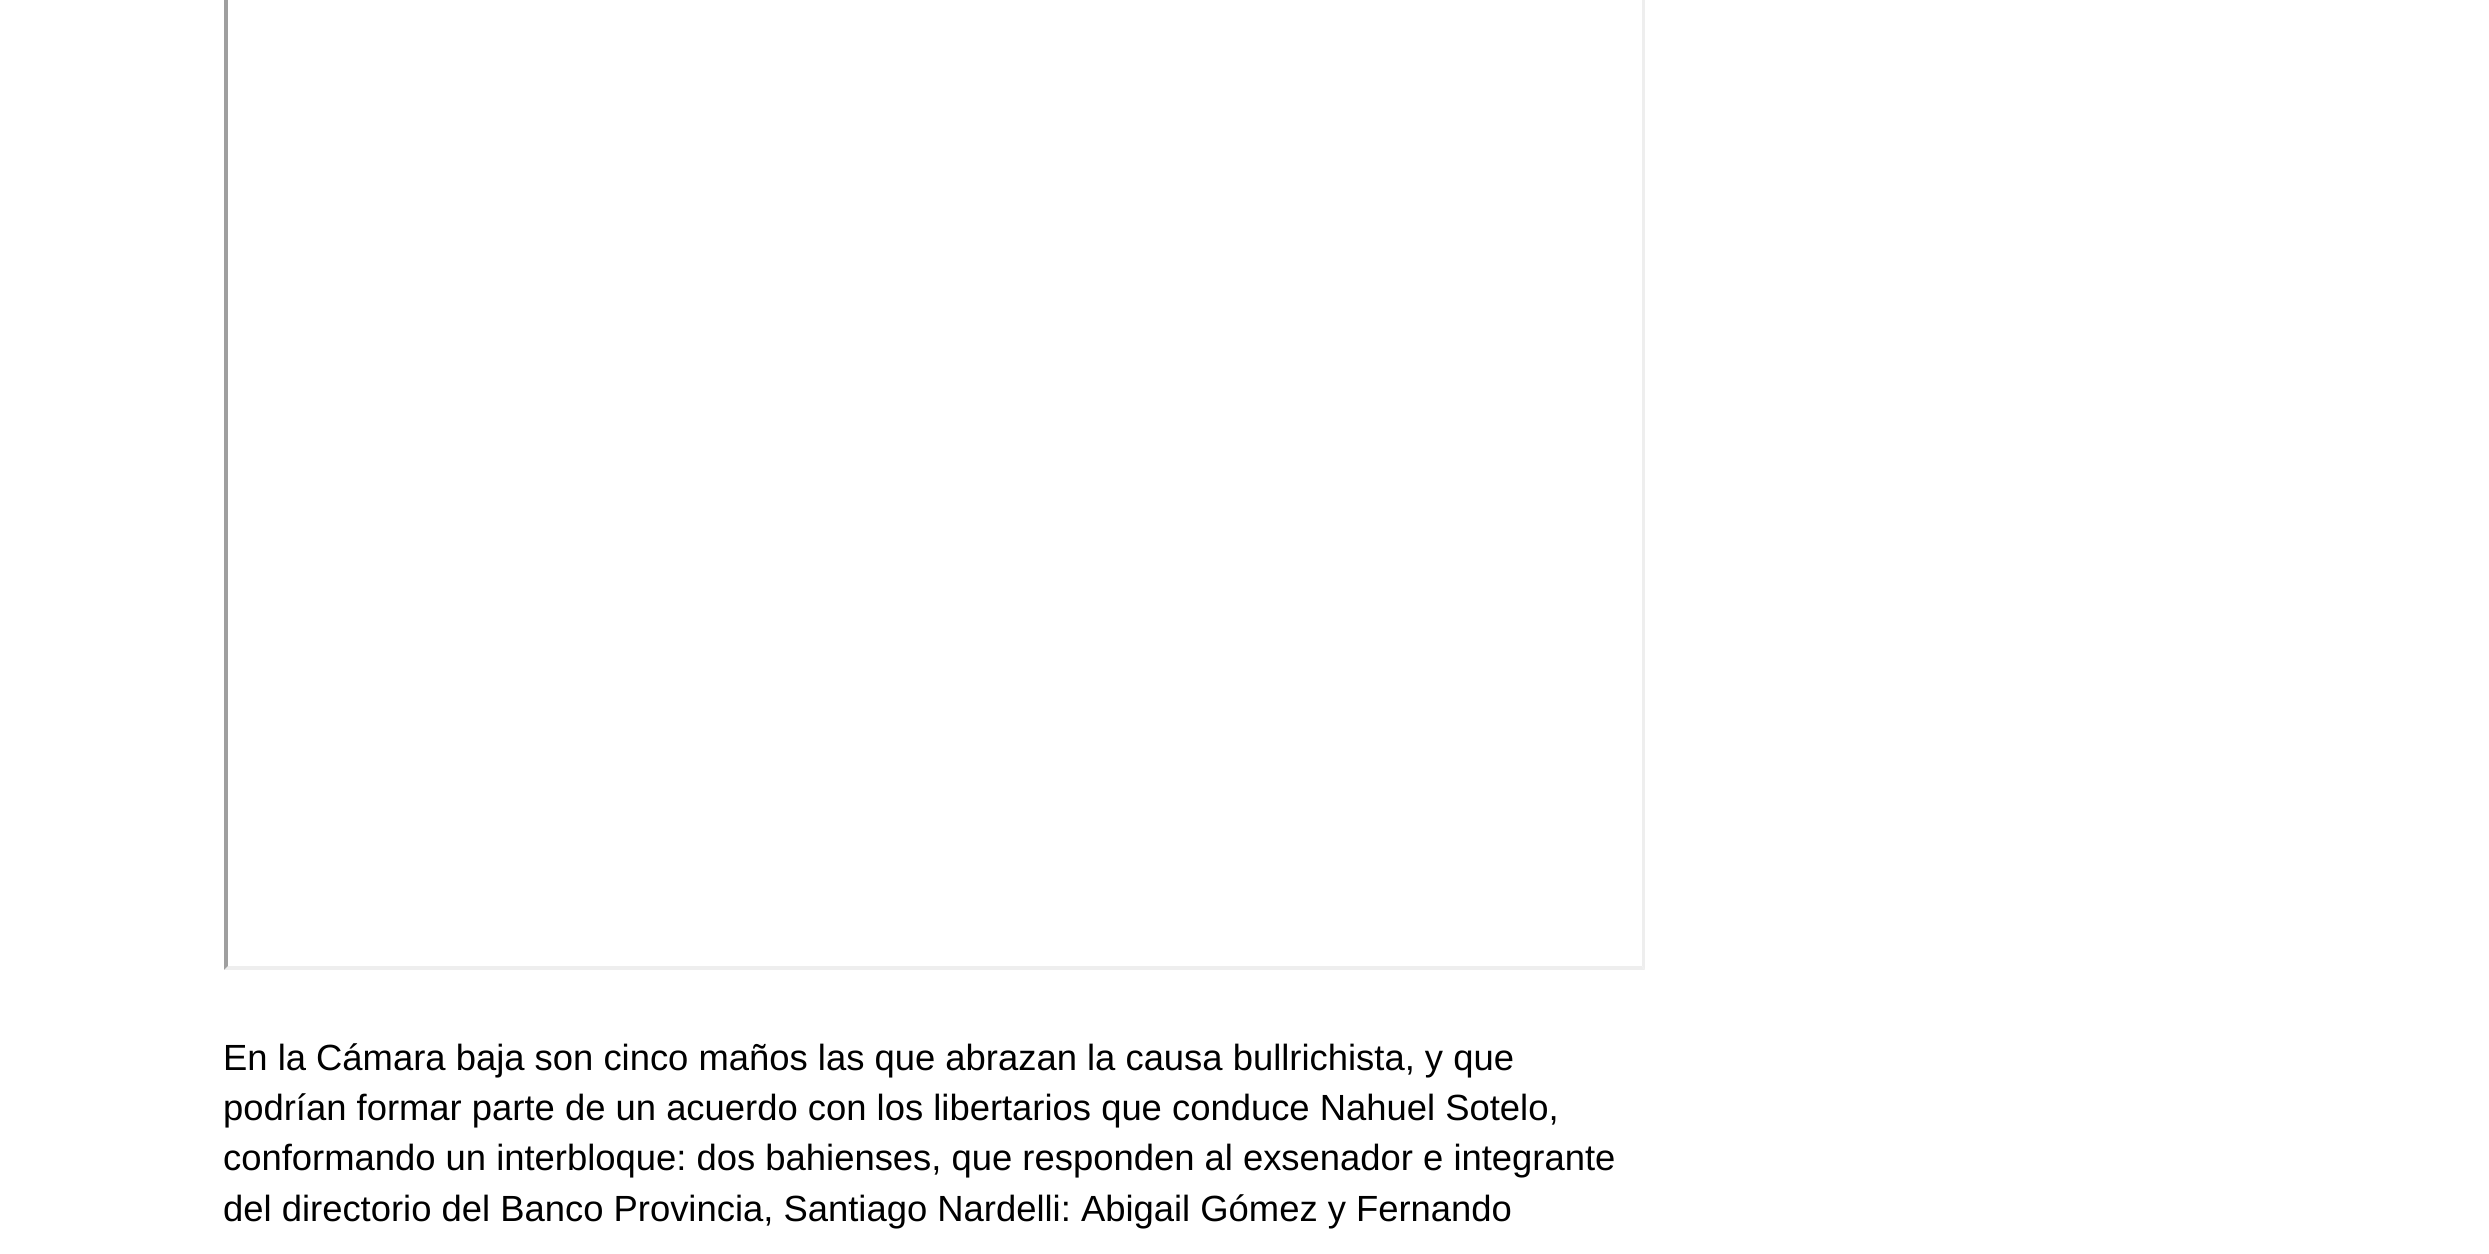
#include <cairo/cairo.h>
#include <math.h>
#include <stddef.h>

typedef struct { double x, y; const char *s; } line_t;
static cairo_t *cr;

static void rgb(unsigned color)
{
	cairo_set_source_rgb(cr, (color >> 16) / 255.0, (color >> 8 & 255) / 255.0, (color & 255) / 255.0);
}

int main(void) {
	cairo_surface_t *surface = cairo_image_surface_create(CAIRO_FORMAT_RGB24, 2489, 1254);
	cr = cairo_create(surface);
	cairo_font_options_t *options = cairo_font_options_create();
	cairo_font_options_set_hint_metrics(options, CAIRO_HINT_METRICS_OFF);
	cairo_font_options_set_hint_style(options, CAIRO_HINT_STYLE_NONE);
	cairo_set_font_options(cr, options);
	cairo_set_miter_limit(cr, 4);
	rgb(0xffffff);
	cairo_paint(cr);
	rgb(0xeeeeee);
	cairo_new_path(cr);
	cairo_move_to(cr, 1645, -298);
	cairo_line_to(cr, 1645, 970);
	cairo_line_to(cr, 1642, 966);
	cairo_line_to(cr, 1642, -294);
	cairo_close_path(cr);
	cairo_fill(cr);
	cairo_new_path(cr);
	cairo_move_to(cr, 1645, 970);
	cairo_line_to(cr, 224, 970);
	cairo_line_to(cr, 228, 966);
	cairo_line_to(cr, 1642, 966);
	cairo_close_path(cr);
	cairo_fill(cr);
	rgb(0x9f9f9f);
	cairo_new_path(cr);
	cairo_move_to(cr, 224, 970);
	cairo_line_to(cr, 224, -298);
	cairo_line_to(cr, 228, -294);
	cairo_line_to(cr, 228, 966);
	cairo_close_path(cr);
	cairo_fill(cr);
	cairo_select_font_face(cr, "Liberation Sans", CAIRO_FONT_SLANT_NORMAL, CAIRO_FONT_WEIGHT_NORMAL);
	cairo_set_font_size(cr, 36.4);
	rgb(0x000000);
	{
		static const line_t items[] = {
			{223, 1070, "En la Cámara baja son cinco maños las que abrazan la causa bullrichista, y que"},
			{223, 1120, "podrían formar parte de un acuerdo con los libertarios que conduce Nahuel Sotelo,"},
			{223, 1170, "conformando un interbloque: dos bahienses, que responden al exsenador e integrante"},
			{223, 1221, "del directorio del Banco Provincia, Santiago Nardelli: Abigail Gómez y Fernando"},
		};
		for (size_t i = 0; i < sizeof items / sizeof *items; i++) {
			cairo_move_to(cr, items[i].x, items[i].y);
			cairo_show_text(cr, items[i].s);
		}
	}
	cairo_surface_write_to_png(surface, "page.png");
	cairo_font_options_destroy(options);
	cairo_destroy(cr);
	cairo_surface_destroy(surface);
	return 0;
}
